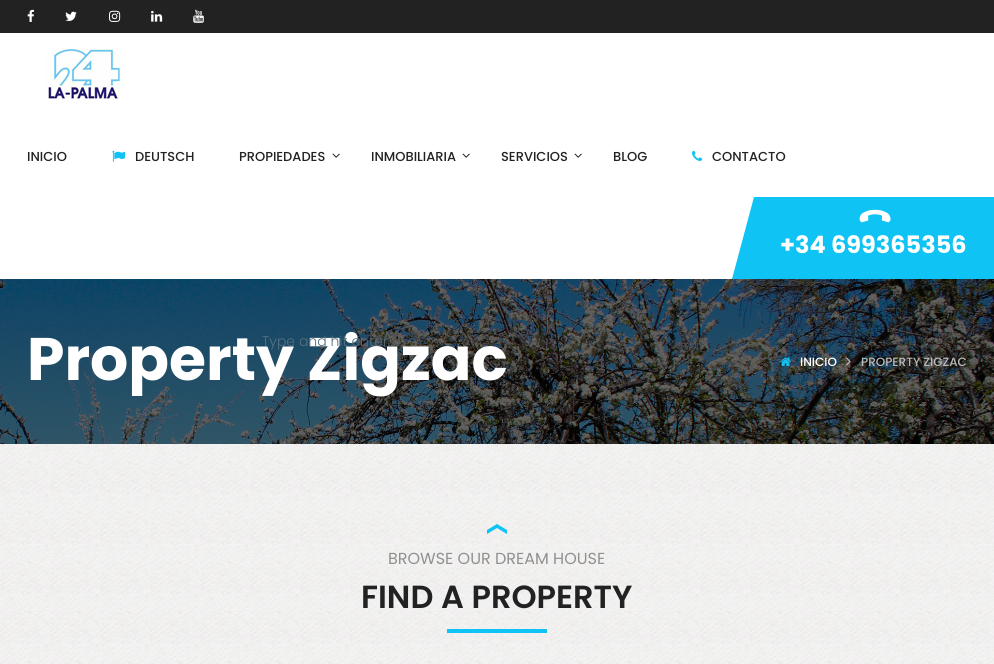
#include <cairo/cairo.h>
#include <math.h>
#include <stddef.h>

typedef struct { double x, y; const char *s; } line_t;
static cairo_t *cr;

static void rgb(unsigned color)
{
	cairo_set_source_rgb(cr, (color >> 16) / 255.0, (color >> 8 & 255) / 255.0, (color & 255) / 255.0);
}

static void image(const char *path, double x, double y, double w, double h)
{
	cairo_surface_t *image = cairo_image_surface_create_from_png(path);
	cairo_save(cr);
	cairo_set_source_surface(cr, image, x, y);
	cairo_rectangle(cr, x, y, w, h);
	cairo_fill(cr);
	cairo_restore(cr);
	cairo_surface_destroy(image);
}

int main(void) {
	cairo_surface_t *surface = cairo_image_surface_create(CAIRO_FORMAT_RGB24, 994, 664);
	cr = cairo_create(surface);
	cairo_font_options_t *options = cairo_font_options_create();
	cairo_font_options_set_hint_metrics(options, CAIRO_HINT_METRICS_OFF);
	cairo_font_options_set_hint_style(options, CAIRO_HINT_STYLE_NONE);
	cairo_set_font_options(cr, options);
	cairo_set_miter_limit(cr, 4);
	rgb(0xffffff);
	cairo_paint(cr);
	rgb(0x222222);
	cairo_rectangle(cr, 0, 0, 994, 33);
	cairo_fill(cr);
	image("img/1.png", 27, 9, 7, 13);
	image("img/2.png", 65, 11, 12, 10);
	image("img/3.png", 109, 10, 12, 12);
	image("img/4.png", 151, 10, 12, 12);
	image("img/5.png", 193, 9, 11, 14);
	image("img/6.png", 45, 49, 79, 50);
	image("img/7.png", 112, 150, 13, 12);
	image("img/8.png", 332, 153, 8, 5);
	image("img/8.png", 462, 153, 8, 5);
	image("img/8.png", 574, 153, 8, 5);
	image("img/9.png", 692, 150, 11, 11);
	rgb(0x0fc3f4);
	cairo_rectangle(cr, 754, 197, 240, 82);
	cairo_fill(cr);
	cairo_new_path(cr);
	cairo_move_to(cr, 754, 279);
	cairo_line_to(cr, 732, 279);
	cairo_line_to(cr, 754, 197);
	cairo_close_path(cr);
	cairo_fill(cr);
	image("img/10.png", 859, 209, 32, 14);
	image("img/11.png", 0, 279, 994, 165);
	image("img/12.png", 780, 357, 11, 9);
	image("img/13.png", 846, 357, 5, 9);
	image("img/14.png", 0, 444, 994, 220);
	cairo_new_path(cr);
	cairo_move_to(cr, 487, 530);
	cairo_line_to(cr, 497, 524);
	cairo_line_to(cr, 497, 528);
	cairo_line_to(cr, 487, 534);
	cairo_close_path(cr);
	cairo_move_to(cr, 497, 524);
	cairo_line_to(cr, 507, 530);
	cairo_line_to(cr, 507, 534);
	cairo_line_to(cr, 497, 528);
	cairo_close_path(cr);
	cairo_fill(cr);
	cairo_rectangle(cr, 447, 629, 100, 4);
	cairo_fill(cr);
	cairo_select_font_face(cr, "Poppins Medium", CAIRO_FONT_SLANT_NORMAL, CAIRO_FONT_WEIGHT_NORMAL);
	cairo_set_font_size(cr, 13);
	rgb(0x222222);
	{
		static const line_t items[] = {
			{27, 161, "INICIO"},
			{135, 161, "DEUTSCH"},
			{239, 161, "PROPIEDADES"},
			{371, 161, "INMOBILIARIA"},
			{501, 161, "SERVICIOS"},
			{613, 161, "BLOG"},
			{712, 161, "CONTACTO"},
		};
		for (size_t i = 0; i < sizeof items / sizeof *items; i++) {
			cairo_move_to(cr, items[i].x, items[i].y);
			cairo_show_text(cr, items[i].s);
		}
	}
	cairo_select_font_face(cr, "Poppins", CAIRO_FONT_SLANT_NORMAL, CAIRO_FONT_WEIGHT_BOLD);
	cairo_set_font_size(cr, 24);
	rgb(0xffffff);
	cairo_move_to(cr, 780, 253);
	cairo_show_text(cr, "+34 699365356");
	cairo_set_font_size(cr, 60);
	cairo_move_to(cr, 27, 380);
	cairo_show_text(cr, "Property Zigzac");
	cairo_select_font_face(cr, "Poppins Medium", CAIRO_FONT_SLANT_NORMAL, CAIRO_FONT_WEIGHT_NORMAL);
	cairo_set_font_size(cr, 12);
	cairo_move_to(cr, 800, 366);
	cairo_show_text(cr, "INICIO");
	rgb(0xbababa);
	cairo_move_to(cr, 861, 366);
	cairo_show_text(cr, "PROPERTY ZIGZAC");
	cairo_select_font_face(cr, "Poppins", CAIRO_FONT_SLANT_NORMAL, CAIRO_FONT_WEIGHT_NORMAL);
	cairo_set_font_size(cr, 16);
	rgb(0x909090);
	cairo_move_to(cr, 388, 564);
	cairo_show_text(cr, "BROWSE OUR DREAM HOUSE");
	cairo_select_font_face(cr, "Poppins SemiBold", CAIRO_FONT_SLANT_NORMAL, CAIRO_FONT_WEIGHT_NORMAL);
	cairo_set_font_size(cr, 32);
	rgb(0x222222);
	cairo_move_to(cr, 361, 608);
	cairo_show_text(cr, "FIND A PROPERTY");
	cairo_select_font_face(cr, "Poppins Light", CAIRO_FONT_SLANT_NORMAL, CAIRO_FONT_WEIGHT_NORMAL);
	cairo_set_font_size(cr, 14);
	rgb(0x577080);
	cairo_move_to(cr, 262, 346);
	cairo_show_text(cr, "Type and hit enter...");
	cairo_surface_write_to_png(surface, "page.png");
	cairo_font_options_destroy(options);
	cairo_destroy(cr);
	cairo_surface_destroy(surface);
	return 0;
}
